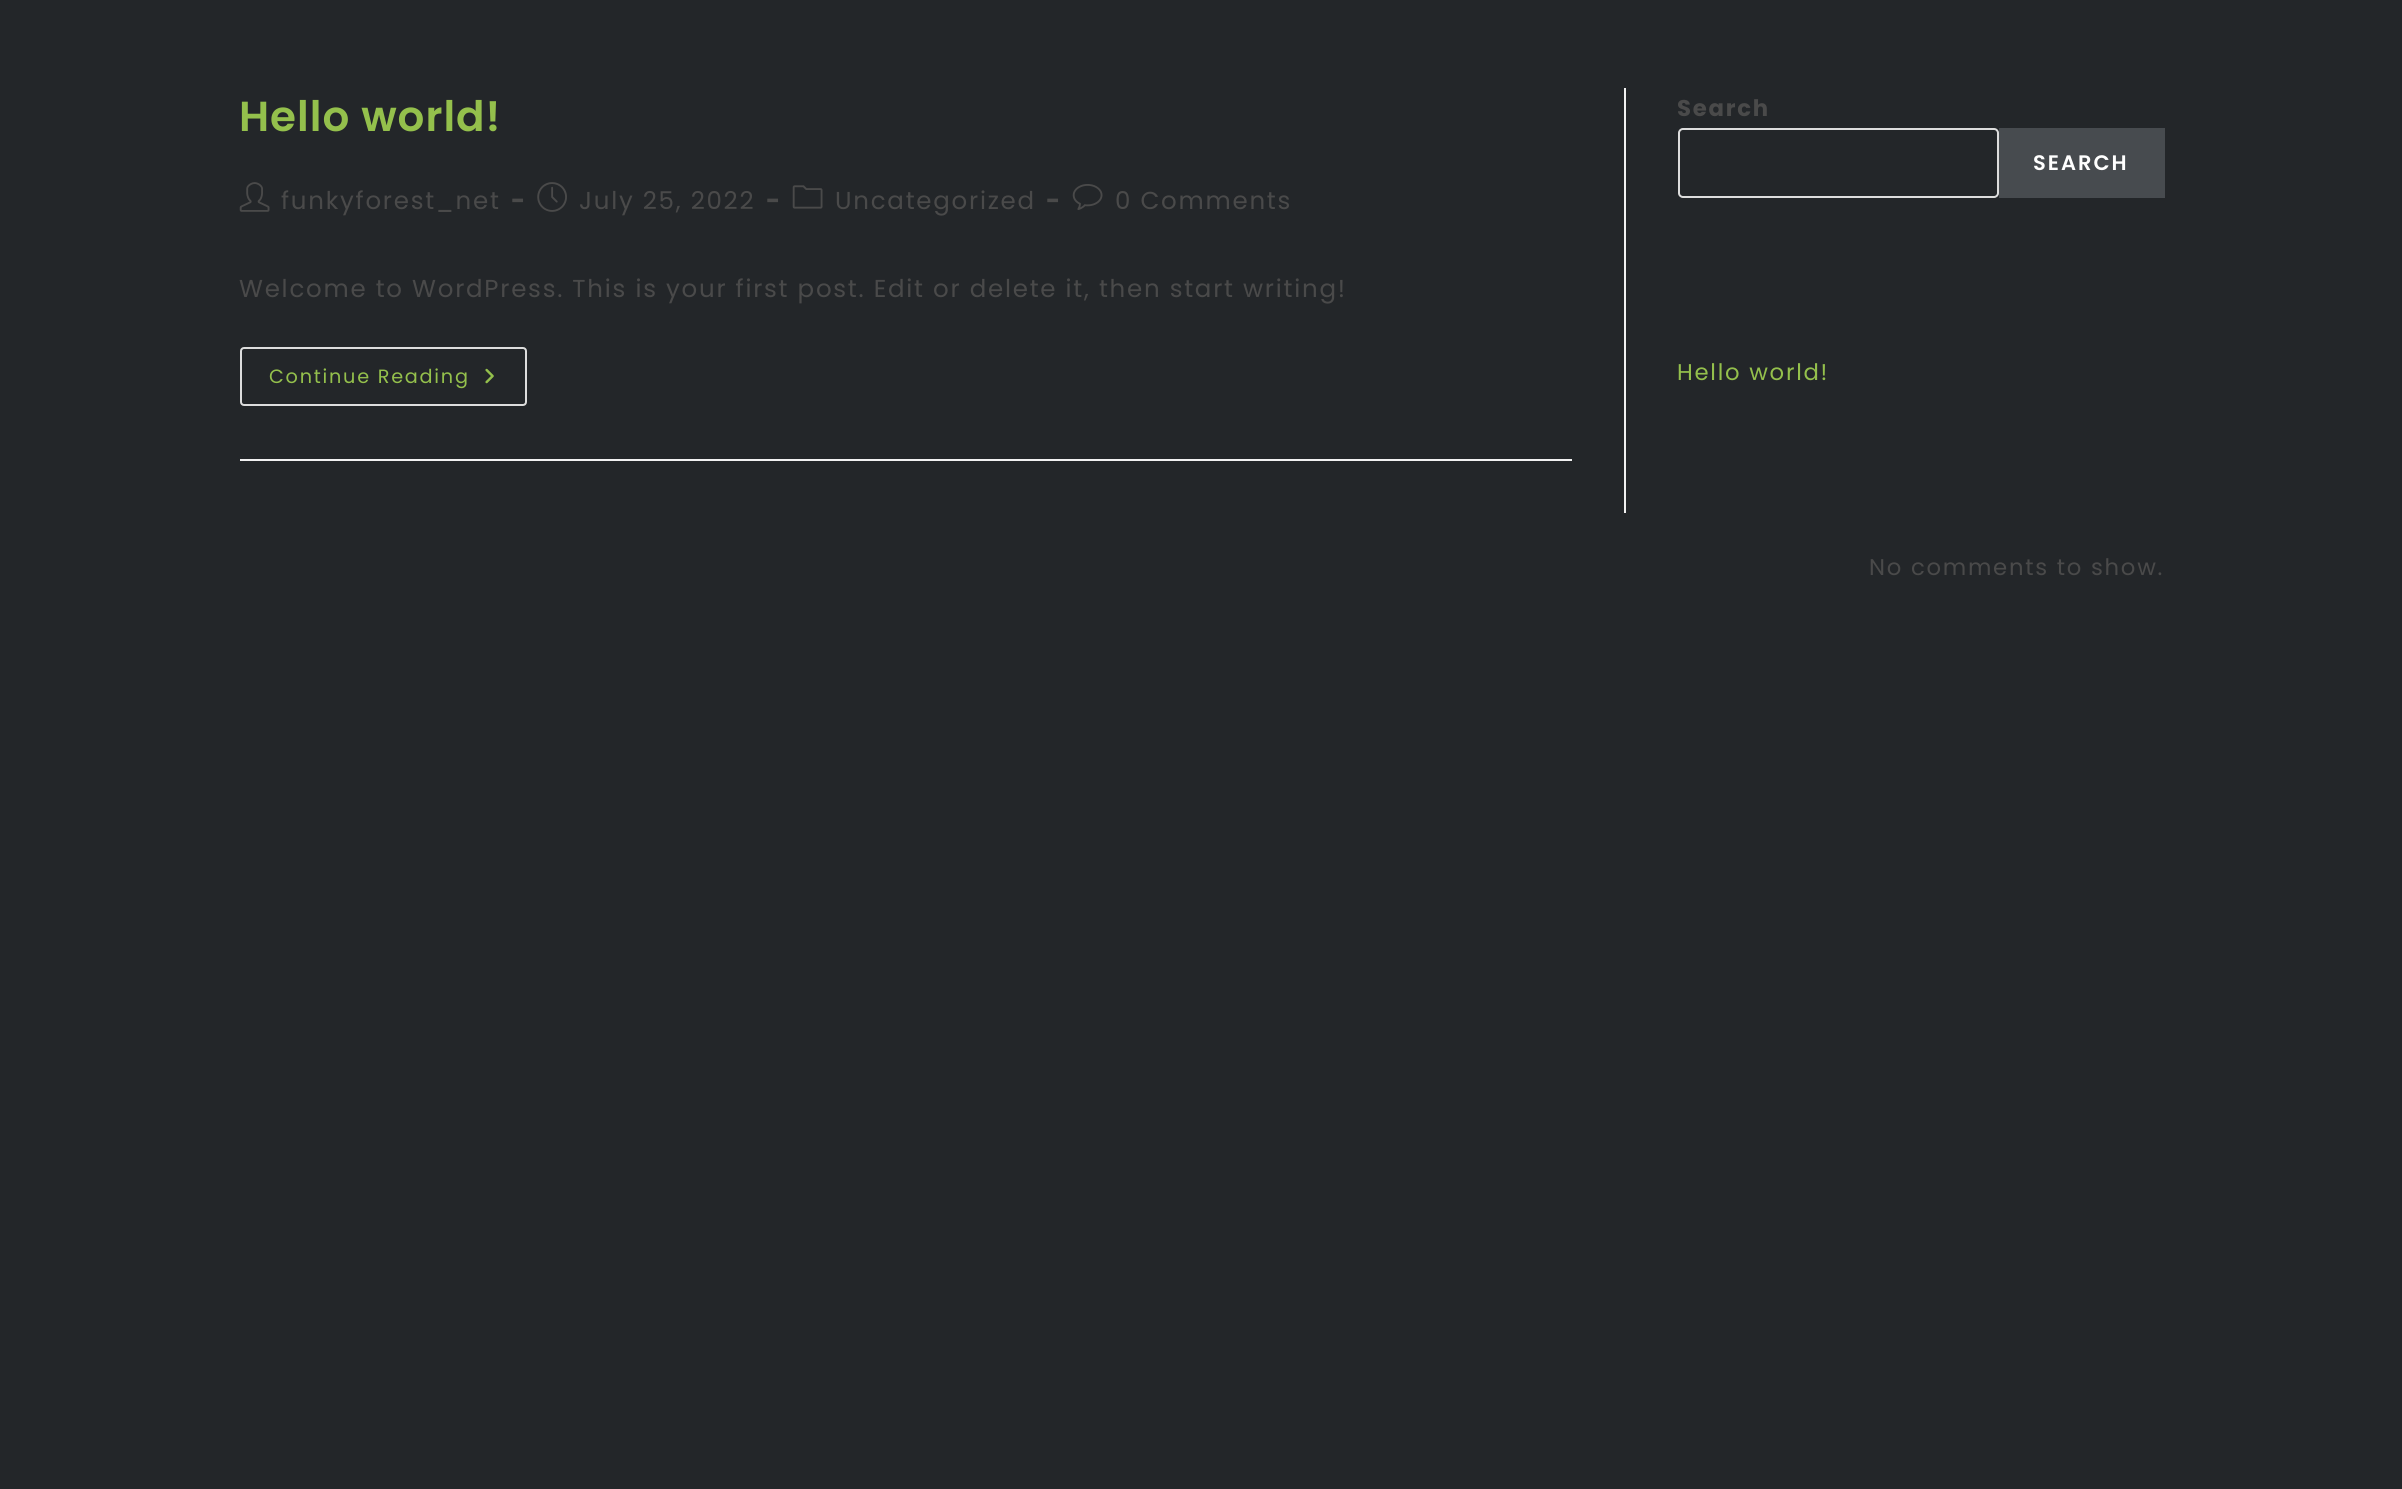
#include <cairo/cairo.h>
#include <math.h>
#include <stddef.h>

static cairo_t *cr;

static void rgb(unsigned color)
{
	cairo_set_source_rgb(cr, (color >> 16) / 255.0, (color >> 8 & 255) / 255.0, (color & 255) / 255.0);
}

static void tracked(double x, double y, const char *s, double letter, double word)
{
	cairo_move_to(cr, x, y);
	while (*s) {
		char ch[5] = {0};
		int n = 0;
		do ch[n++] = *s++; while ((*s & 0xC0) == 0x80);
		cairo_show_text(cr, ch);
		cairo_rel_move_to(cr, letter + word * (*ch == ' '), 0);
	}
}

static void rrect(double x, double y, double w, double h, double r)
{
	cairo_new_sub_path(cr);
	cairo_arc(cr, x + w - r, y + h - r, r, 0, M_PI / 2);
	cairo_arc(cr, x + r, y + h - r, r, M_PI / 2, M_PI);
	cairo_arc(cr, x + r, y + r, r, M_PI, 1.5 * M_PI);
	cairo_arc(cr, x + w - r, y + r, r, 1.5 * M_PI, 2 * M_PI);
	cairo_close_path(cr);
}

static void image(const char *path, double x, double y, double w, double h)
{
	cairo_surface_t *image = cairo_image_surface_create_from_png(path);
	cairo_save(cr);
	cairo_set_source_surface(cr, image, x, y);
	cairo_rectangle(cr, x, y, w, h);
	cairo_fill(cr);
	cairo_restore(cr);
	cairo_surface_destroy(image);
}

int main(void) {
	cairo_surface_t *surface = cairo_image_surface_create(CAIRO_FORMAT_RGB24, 2402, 1489);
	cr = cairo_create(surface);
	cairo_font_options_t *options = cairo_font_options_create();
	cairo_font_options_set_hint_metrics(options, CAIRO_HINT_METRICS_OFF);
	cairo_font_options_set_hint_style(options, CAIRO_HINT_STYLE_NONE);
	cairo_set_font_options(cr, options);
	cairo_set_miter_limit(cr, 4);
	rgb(0x232629);
	cairo_paint(cr);
	rgb(0xf1f1f1);
	cairo_rectangle(cr, 1624, 88, 2, 425);
	cairo_fill(cr);
	cairo_rectangle(cr, 240, 459, 1332, 2);
	cairo_fill(cr);
	image("img/1.png", 239, 182, 31, 30);
	image("img/2.png", 537, 182, 30, 30);
	image("img/3.png", 792, 185, 31, 24);
	image("img/4.png", 1072, 184, 31, 26);
	rrect(241, 348, 285, 57, 3);
	rgb(0xdddddd);
	cairo_stroke(cr);
	image("img/5.png", 485, 368, 9, 16);
	rrect(1679, 129, 319, 68, 4);
	cairo_stroke(cr);
	rgb(0x474b4f);
	cairo_rectangle(cr, 1999, 128, 166, 70);
	cairo_fill(cr);
	cairo_select_font_face(cr, "Poppins SemiBold", CAIRO_FONT_SLANT_NORMAL, CAIRO_FONT_WEIGHT_NORMAL);
	cairo_set_font_size(cr, 42);
	rgb(0x94c04c);
	tracked(239, 131, "Hello world!", 1, 0);
	cairo_select_font_face(cr, "Poppins", CAIRO_FONT_SLANT_NORMAL, CAIRO_FONT_WEIGHT_NORMAL);
	cairo_set_font_size(cr, 24.5);
	rgb(0x4a4a4a);
	tracked(281, 209, "funkyforest_net", 1.75, 0);
	cairo_select_font_face(cr, "Poppins", CAIRO_FONT_SLANT_NORMAL, CAIRO_FONT_WEIGHT_BOLD);
	tracked(511, 209, "-", 1.75, 0);
	cairo_select_font_face(cr, "Poppins", CAIRO_FONT_SLANT_NORMAL, CAIRO_FONT_WEIGHT_NORMAL);
	tracked(579, 209, "July 25, 2022", 1.75, 0);
	cairo_select_font_face(cr, "Poppins", CAIRO_FONT_SLANT_NORMAL, CAIRO_FONT_WEIGHT_BOLD);
	tracked(766, 209, "-", 1.75, 0);
	cairo_select_font_face(cr, "Poppins", CAIRO_FONT_SLANT_NORMAL, CAIRO_FONT_WEIGHT_NORMAL);
	tracked(835, 209, "Uncategorized", 1.75, 0);
	cairo_select_font_face(cr, "Poppins", CAIRO_FONT_SLANT_NORMAL, CAIRO_FONT_WEIGHT_BOLD);
	tracked(1046, 209, "-", 1.75, 0);
	cairo_select_font_face(cr, "Poppins", CAIRO_FONT_SLANT_NORMAL, CAIRO_FONT_WEIGHT_NORMAL);
	tracked(1115, 209, "0 Comments", 1.75, 0);
	tracked(239, 297, "Welcome to WordPress. This is your first post. Edit or delete it, then start writing!", 1.75, 0);
	cairo_set_font_size(cr, 19.25);
	rgb(0x94c04c);
	tracked(269, 383, "Continue Reading", 1.75, 0);
	cairo_select_font_face(cr, "Poppins", CAIRO_FONT_SLANT_NORMAL, CAIRO_FONT_WEIGHT_BOLD);
	cairo_set_font_size(cr, 22.75);
	rgb(0x4a4a4a);
	tracked(1677, 116, "Search", 1.75, 0);
	cairo_select_font_face(cr, "Poppins SemiBold", CAIRO_FONT_SLANT_NORMAL, CAIRO_FONT_WEIGHT_NORMAL);
	cairo_set_font_size(cr, 21);
	rgb(0xffffff);
	tracked(2033, 170, "SEARCH", 2, 0);
	cairo_select_font_face(cr, "Poppins", CAIRO_FONT_SLANT_NORMAL, CAIRO_FONT_WEIGHT_NORMAL);
	cairo_set_font_size(cr, 22.75);
	rgb(0x94c04c);
	tracked(1677, 380, "Hello world!", 1.75, 0);
	rgb(0x4a4a4a);
	tracked(1869, 575, "No comments to show.", 1.75, 0);
	cairo_surface_write_to_png(surface, "page.png");
	cairo_font_options_destroy(options);
	cairo_destroy(cr);
	cairo_surface_destroy(surface);
	return 0;
}
